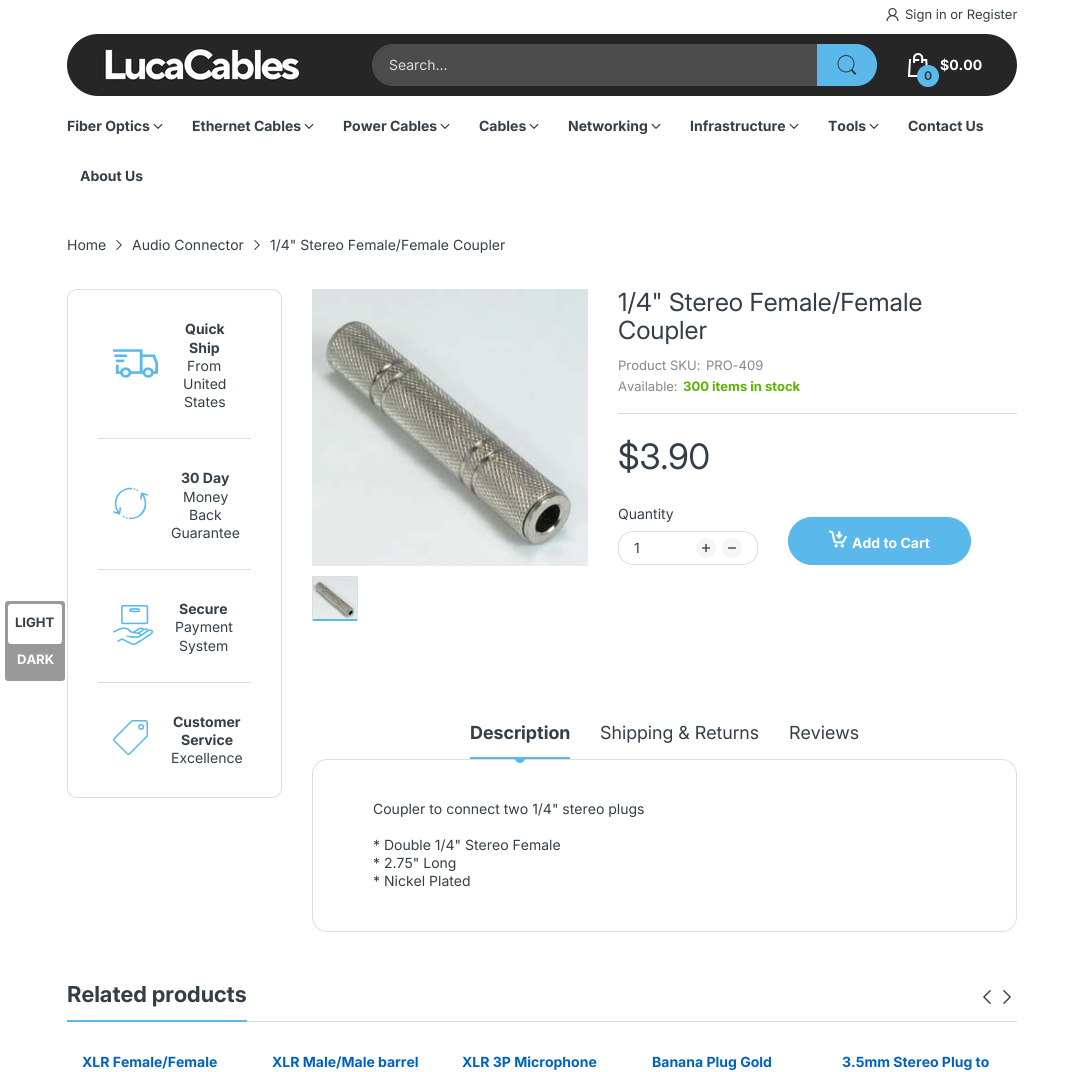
#include <cairo/cairo.h>
#include <math.h>
#include <stddef.h>

typedef struct { double x, y; const char *s; } line_t;
static cairo_t *cr;

static void rgb(unsigned color)
{
	cairo_set_source_rgb(cr, (color >> 16) / 255.0, (color >> 8 & 255) / 255.0, (color & 255) / 255.0);
}

static void rrect(double x, double y, double w, double h, double r)
{
	cairo_new_sub_path(cr);
	cairo_arc(cr, x + w - r, y + h - r, r, 0, M_PI / 2);
	cairo_arc(cr, x + r, y + h - r, r, M_PI / 2, M_PI);
	cairo_arc(cr, x + r, y + r, r, M_PI, 1.5 * M_PI);
	cairo_arc(cr, x + w - r, y + r, r, 1.5 * M_PI, 2 * M_PI);
	cairo_close_path(cr);
}

static void image(const char *path, double x, double y, double w, double h)
{
	cairo_surface_t *image = cairo_image_surface_create_from_png(path);
	cairo_save(cr);
	cairo_set_source_surface(cr, image, x, y);
	cairo_rectangle(cr, x, y, w, h);
	cairo_fill(cr);
	cairo_restore(cr);
	cairo_surface_destroy(image);
}

int main(void) {
	cairo_surface_t *surface = cairo_image_surface_create(CAIRO_FORMAT_RGB24, 1084, 1072);
	cr = cairo_create(surface);
	cairo_font_options_t *options = cairo_font_options_create();
	cairo_font_options_set_hint_metrics(options, CAIRO_HINT_METRICS_OFF);
	cairo_font_options_set_hint_style(options, CAIRO_HINT_STYLE_NONE);
	cairo_set_font_options(cr, options);
	cairo_set_miter_limit(cr, 4);
	rgb(0xffffff);
	cairo_paint(cr);
	rgb(0x999999);
	rrect(5, 601, 60, 80, 3);
	cairo_fill(cr);
	rgb(0xffffff);
	rrect(8, 604, 54, 40, 3);
	cairo_fill(cr);
	image("img/1.png", 886, 8, 13, 13);
	rgb(0x262626);
	rrect(67, 34, 950, 62, 31);
	cairo_fill(cr);
	image("img/2.png", 103, 48, 199, 33);
	rrect(373, 45, 502, 40, 20);
	rgb(0x4c4c4c);
	cairo_stroke(cr);
	rrect(374, 46, 500, 38, 19);
	cairo_fill(cr);
	rgb(0x5ab9ea);
	cairo_new_path(cr);
	cairo_move_to(cr, 817.5, 44.5);
	cairo_line_to(cr, 856, 44.5);
	cairo_curve_to(cr, 867.5, 44.5, 876.5, 53.5, 876.5, 65);
	cairo_curve_to(cr, 876.5, 76.5, 867.5, 85.5, 856, 85.5);
	cairo_line_to(cr, 817.5, 85.5);
	cairo_close_path(cr);
	cairo_fill_preserve(cr);
	cairo_set_line_width(cr, 1);
	cairo_stroke(cr);
	image("img/3.png", 837, 55, 20, 20);
	image("img/4.png", 907, 53, 21, 24);
	cairo_arc(cr, 928, 76, 11, 0, 2 * M_PI);
	cairo_fill(cr);
	image("img/5.png", 153, 123, 10, 6);
	image("img/5.png", 304, 123, 10, 6);
	image("img/5.png", 440, 123, 10, 6);
	image("img/5.png", 529, 123, 10, 6);
	image("img/5.png", 651, 123, 10, 6);
	image("img/5.png", 789, 123, 10, 6);
	image("img/5.png", 869, 123, 10, 6);
	image("img/6.png", 116, 240, 6, 10);
	image("img/6.png", 254, 240, 6, 10);
	rrect(67.5, 289.5, 214, 508, 9.5);
	rgb(0xdddddd);
	cairo_stroke(cr);
	cairo_rectangle(cr, 98, 438, 153, 1);
	cairo_fill(cr);
	image("img/7.png", 113, 349, 45, 29);
	cairo_rectangle(cr, 98, 569, 153, 1);
	cairo_fill(cr);
	image("img/8.png", 113, 487, 35, 33);
	cairo_rectangle(cr, 98, 682, 153, 1);
	cairo_fill(cr);
	image("img/9.png", 113, 605, 40, 40);
	image("img/10.png", 113, 720, 35, 35);
	image("img/11.png", 312, 289, 276, 277);
	cairo_rectangle(cr, 312.5, 576.5, 45, 44);
	cairo_stroke(cr);
	image("img/12.png", 313, 577, 44, 42);
	rgb(0x5ab9ea);
	cairo_rectangle(cr, 313, 619, 44, 2);
	cairo_fill(cr);
	rgb(0xdddddd);
	cairo_rectangle(cr, 618, 413, 399, 1);
	cairo_fill(cr);
	rrect(618.5, 531.5, 139, 33, 14.5);
	cairo_stroke(cr);
	rgb(0xf5f5f5);
	cairo_arc(cr, 706, 548, 10, 0, 2 * M_PI);
	cairo_fill(cr);
	image("img/13.png", 702, 544, 8, 8);
	cairo_arc(cr, 732, 548, 10, 0, 2 * M_PI);
	cairo_fill(cr);
	image("img/14.png", 728, 547, 8, 2);
	rgb(0x5ab9ea);
	rrect(788.5, 517.5, 182, 47, 23.5);
	cairo_fill_preserve(cr);
	cairo_stroke(cr);
	image("img/15.png", 829, 530, 18, 18);
	cairo_rectangle(cr, 470, 757, 100, 2);
	cairo_fill(cr);
	rrect(312.5, 759.5, 704, 172, 14.5);
	rgb(0xdddddd);
	cairo_stroke(cr);
	rgb(0x5ab9ea);
	cairo_new_path(cr);
	cairo_move_to(cr, 515, 757);
	cairo_line_to(cr, 525, 757);
	cairo_line_to(cr, 525, 758);
	cairo_curve_to(cr, 525, 761, 523, 763, 520, 763);
	cairo_curve_to(cr, 517, 763, 515, 761, 515, 758);
	cairo_close_path(cr);
	cairo_fill(cr);
	rgb(0xdddddd);
	cairo_rectangle(cr, 247, 1021, 770, 1);
	cairo_fill(cr);
	rgb(0x5ab9ea);
	cairo_rectangle(cr, 67, 1020, 180, 2);
	cairo_fill(cr);
	image("img/16.png", 983, 990, 8, 14);
	image("img/17.png", 1003, 990, 8, 14);
	cairo_select_font_face(cr, "Inter", CAIRO_FONT_SLANT_NORMAL, CAIRO_FONT_WEIGHT_BOLD);
	cairo_set_font_size(cr, 13);
	rgb(0x333e48);
	cairo_move_to(cr, 15, 627);
	cairo_show_text(cr, "LIGHT");
	rgb(0xffffff);
	cairo_move_to(cr, 17, 664);
	cairo_show_text(cr, "DARK");
	cairo_select_font_face(cr, "Inter", CAIRO_FONT_SLANT_NORMAL, CAIRO_FONT_WEIGHT_NORMAL);
	rgb(0x333e48);
	cairo_move_to(cr, 905, 19);
	cairo_show_text(cr, "Sign in or Register");
	cairo_set_font_size(cr, 14);
	rgb(0xdbdbdb);
	cairo_move_to(cr, 389, 70);
	cairo_show_text(cr, "Search...");
	cairo_select_font_face(cr, "Inter", CAIRO_FONT_SLANT_NORMAL, CAIRO_FONT_WEIGHT_BOLD);
	rgb(0xffffff);
	cairo_move_to(cr, 940, 70);
	cairo_show_text(cr, "$0.00");
	cairo_set_font_size(cr, 12);
	rgb(0x333e48);
	cairo_move_to(cr, 924, 80);
	cairo_show_text(cr, "0");
	cairo_set_font_size(cr, 14);
	{
		static const line_t items[] = {
			{67, 131, "Fiber Optics"},
			{192, 131, "Ethernet Cables"},
			{343, 131, "Power Cables"},
			{479, 131, "Cables"},
			{568, 131, "Networking"},
			{690, 131, "Infrastructure"},
			{828, 131, "Tools"},
			{908, 131, "Contact Us"},
			{80, 181, "About Us"},
		};
		for (size_t i = 0; i < sizeof items / sizeof *items; i++) {
			cairo_move_to(cr, items[i].x, items[i].y);
			cairo_show_text(cr, items[i].s);
		}
	}
	cairo_select_font_face(cr, "Inter", CAIRO_FONT_SLANT_NORMAL, CAIRO_FONT_WEIGHT_NORMAL);
	{
		static const line_t items[] = {
			{67, 250, "Home"},
			{132, 250, "Audio Connector"},
			{270, 250, "1/4\" Stereo Female/Female Coupler"},
		};
		for (size_t i = 0; i < sizeof items / sizeof *items; i++) {
			cairo_move_to(cr, items[i].x, items[i].y);
			cairo_show_text(cr, items[i].s);
		}
	}
	cairo_select_font_face(cr, "Inter", CAIRO_FONT_SLANT_NORMAL, CAIRO_FONT_WEIGHT_BOLD);
	cairo_move_to(cr, 185, 334);
	cairo_show_text(cr, "Quick");
	cairo_move_to(cr, 189, 353);
	cairo_show_text(cr, "Ship");
	cairo_select_font_face(cr, "Inter", CAIRO_FONT_SLANT_NORMAL, CAIRO_FONT_WEIGHT_NORMAL);
	{
		static const line_t items[] = {
			{187, 371, "From"},
			{183, 389, "United"},
			{184, 407, "States"},
		};
		for (size_t i = 0; i < sizeof items / sizeof *items; i++) {
			cairo_move_to(cr, items[i].x, items[i].y);
			cairo_show_text(cr, items[i].s);
		}
	}
	cairo_select_font_face(cr, "Inter", CAIRO_FONT_SLANT_NORMAL, CAIRO_FONT_WEIGHT_BOLD);
	cairo_move_to(cr, 181, 483);
	cairo_show_text(cr, "30 Day");
	cairo_select_font_face(cr, "Inter", CAIRO_FONT_SLANT_NORMAL, CAIRO_FONT_WEIGHT_NORMAL);
	{
		static const line_t items[] = {
			{183, 502, "Money"},
			{189, 520, "Back"},
			{171, 538, "Guarantee"},
		};
		for (size_t i = 0; i < sizeof items / sizeof *items; i++) {
			cairo_move_to(cr, items[i].x, items[i].y);
			cairo_show_text(cr, items[i].s);
		}
	}
	cairo_select_font_face(cr, "Inter", CAIRO_FONT_SLANT_NORMAL, CAIRO_FONT_WEIGHT_BOLD);
	cairo_move_to(cr, 179, 614);
	cairo_show_text(cr, "Secure");
	cairo_select_font_face(cr, "Inter", CAIRO_FONT_SLANT_NORMAL, CAIRO_FONT_WEIGHT_NORMAL);
	cairo_move_to(cr, 175, 632);
	cairo_show_text(cr, "Payment");
	cairo_move_to(cr, 179, 651);
	cairo_show_text(cr, "System");
	cairo_select_font_face(cr, "Inter", CAIRO_FONT_SLANT_NORMAL, CAIRO_FONT_WEIGHT_BOLD);
	cairo_move_to(cr, 173, 727);
	cairo_show_text(cr, "Customer");
	cairo_move_to(cr, 181, 745);
	cairo_show_text(cr, "Service");
	cairo_select_font_face(cr, "Inter", CAIRO_FONT_SLANT_NORMAL, CAIRO_FONT_WEIGHT_NORMAL);
	cairo_move_to(cr, 171, 763);
	cairo_show_text(cr, "Excellence");
	cairo_select_font_face(cr, "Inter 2", CAIRO_FONT_SLANT_NORMAL, CAIRO_FONT_WEIGHT_NORMAL);
	cairo_set_font_size(cr, 25);
	cairo_move_to(cr, 618, 311);
	cairo_show_text(cr, "1/4\" Stereo Female/Female");
	cairo_move_to(cr, 618, 339);
	cairo_show_text(cr, "Coupler");
	cairo_select_font_face(cr, "Inter", CAIRO_FONT_SLANT_NORMAL, CAIRO_FONT_WEIGHT_NORMAL);
	cairo_set_font_size(cr, 13);
	rgb(0x878787);
	{
		static const line_t items[] = {
			{618, 370, "Product SKU:"},
			{706, 370, "PRO-409"},
			{618, 391, "Available:"},
		};
		for (size_t i = 0; i < sizeof items / sizeof *items; i++) {
			cairo_move_to(cr, items[i].x, items[i].y);
			cairo_show_text(cr, items[i].s);
		}
	}
	cairo_select_font_face(cr, "Inter", CAIRO_FONT_SLANT_NORMAL, CAIRO_FONT_WEIGHT_BOLD);
	rgb(0x5bb300);
	cairo_move_to(cr, 683, 391);
	cairo_show_text(cr, "300 items in stock");
	cairo_select_font_face(cr, "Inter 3", CAIRO_FONT_SLANT_NORMAL, CAIRO_FONT_WEIGHT_NORMAL);
	cairo_set_font_size(cr, 35);
	rgb(0x333e48);
	cairo_move_to(cr, 618, 469);
	cairo_show_text(cr, "$3.90");
	cairo_select_font_face(cr, "Inter", CAIRO_FONT_SLANT_NORMAL, CAIRO_FONT_WEIGHT_NORMAL);
	cairo_set_font_size(cr, 14);
	cairo_move_to(cr, 618, 519);
	cairo_show_text(cr, "Quantity");
	cairo_move_to(cr, 634, 553);
	cairo_show_text(cr, "1");
	cairo_select_font_face(cr, "Inter", CAIRO_FONT_SLANT_NORMAL, CAIRO_FONT_WEIGHT_BOLD);
	rgb(0xffffff);
	cairo_move_to(cr, 852, 548);
	cairo_show_text(cr, "Add to Cart");
	cairo_select_font_face(cr, "Inter 2", CAIRO_FONT_SLANT_NORMAL, CAIRO_FONT_WEIGHT_BOLD);
	cairo_set_font_size(cr, 18);
	rgb(0x333e48);
	cairo_move_to(cr, 470, 739);
	cairo_show_text(cr, "Description");
	cairo_select_font_face(cr, "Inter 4", CAIRO_FONT_SLANT_NORMAL, CAIRO_FONT_WEIGHT_NORMAL);
	cairo_move_to(cr, 600, 739);
	cairo_show_text(cr, "Shipping & Returns");
	cairo_move_to(cr, 789, 739);
	cairo_show_text(cr, "Reviews");
	cairo_select_font_face(cr, "Inter", CAIRO_FONT_SLANT_NORMAL, CAIRO_FONT_WEIGHT_NORMAL);
	cairo_set_font_size(cr, 14);
	{
		static const line_t items[] = {
			{373, 814, "Coupler to connect two 1/4\" stereo plugs"},
			{373, 850, "* Double 1/4\" Stereo Female"},
			{373, 868, "* 2.75\" Long"},
			{373, 886, "* Nickel Plated"},
		};
		for (size_t i = 0; i < sizeof items / sizeof *items; i++) {
			cairo_move_to(cr, items[i].x, items[i].y);
			cairo_show_text(cr, items[i].s);
		}
	}
	cairo_select_font_face(cr, "Inter 3", CAIRO_FONT_SLANT_NORMAL, CAIRO_FONT_WEIGHT_BOLD);
	cairo_set_font_size(cr, 22);
	cairo_move_to(cr, 67, 1002);
	cairo_show_text(cr, "Related products");
	cairo_select_font_face(cr, "Inter", CAIRO_FONT_SLANT_NORMAL, CAIRO_FONT_WEIGHT_BOLD);
	cairo_set_font_size(cr, 14);
	rgb(0x0062bd);
	{
		static const line_t items[] = {
			{82, 1067, "XLR Female/Female"},
			{272, 1067, "XLR Male/Male barrel"},
			{462, 1067, "XLR 3P Microphone"},
			{652, 1067, "Banana Plug Gold"},
			{842, 1067, "3.5mm Stereo Plug to"},
		};
		for (size_t i = 0; i < sizeof items / sizeof *items; i++) {
			cairo_move_to(cr, items[i].x, items[i].y);
			cairo_show_text(cr, items[i].s);
		}
	}
	cairo_surface_write_to_png(surface, "page.png");
	cairo_font_options_destroy(options);
	cairo_destroy(cr);
	cairo_surface_destroy(surface);
	return 0;
}
